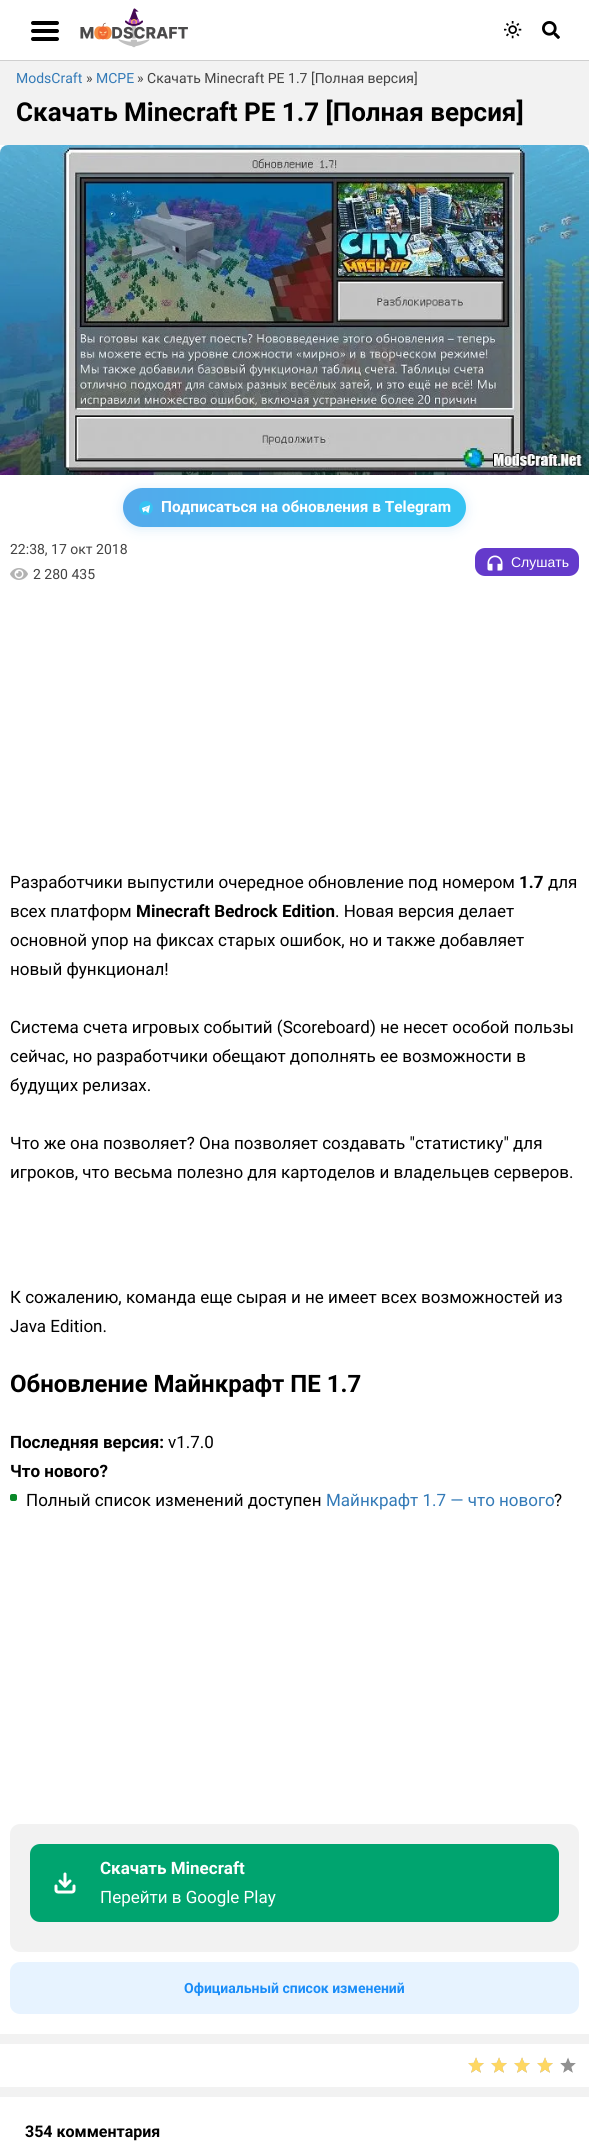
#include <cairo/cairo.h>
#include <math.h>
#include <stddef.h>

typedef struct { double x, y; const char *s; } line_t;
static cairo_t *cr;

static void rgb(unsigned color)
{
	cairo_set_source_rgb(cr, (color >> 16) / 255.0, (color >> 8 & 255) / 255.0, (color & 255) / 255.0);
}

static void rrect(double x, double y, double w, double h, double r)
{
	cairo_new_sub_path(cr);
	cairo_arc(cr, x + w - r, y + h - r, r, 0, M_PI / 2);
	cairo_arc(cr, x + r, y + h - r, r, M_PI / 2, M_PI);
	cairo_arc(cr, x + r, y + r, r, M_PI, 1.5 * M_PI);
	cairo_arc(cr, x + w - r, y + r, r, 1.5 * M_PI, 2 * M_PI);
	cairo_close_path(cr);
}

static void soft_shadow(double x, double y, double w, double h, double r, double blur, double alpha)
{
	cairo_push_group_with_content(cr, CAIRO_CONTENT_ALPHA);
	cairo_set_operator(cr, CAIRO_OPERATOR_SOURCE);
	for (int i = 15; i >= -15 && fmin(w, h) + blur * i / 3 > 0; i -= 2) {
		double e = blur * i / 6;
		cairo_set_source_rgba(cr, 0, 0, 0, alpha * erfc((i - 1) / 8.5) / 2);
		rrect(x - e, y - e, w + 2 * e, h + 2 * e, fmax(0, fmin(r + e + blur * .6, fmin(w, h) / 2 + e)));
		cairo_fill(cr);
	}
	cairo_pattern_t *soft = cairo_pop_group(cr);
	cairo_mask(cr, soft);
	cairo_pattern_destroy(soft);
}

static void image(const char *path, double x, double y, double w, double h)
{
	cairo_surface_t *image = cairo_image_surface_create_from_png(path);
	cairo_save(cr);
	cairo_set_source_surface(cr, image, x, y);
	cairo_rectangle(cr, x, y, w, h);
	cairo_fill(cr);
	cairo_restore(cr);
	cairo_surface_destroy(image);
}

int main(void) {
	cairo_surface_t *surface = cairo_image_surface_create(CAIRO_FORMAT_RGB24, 589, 2144);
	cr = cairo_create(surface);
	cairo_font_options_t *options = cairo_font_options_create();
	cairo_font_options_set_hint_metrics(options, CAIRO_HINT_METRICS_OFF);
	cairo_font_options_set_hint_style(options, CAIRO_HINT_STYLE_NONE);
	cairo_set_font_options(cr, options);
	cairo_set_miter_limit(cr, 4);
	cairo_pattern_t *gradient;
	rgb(0xf2f2f2);
	cairo_paint(cr);
	rgb(0xffffff);
	cairo_rectangle(cr, 0, 0, 589, 60);
	cairo_fill(cr);
	rgb(0xcfcfcf);
	cairo_rectangle(cr, 0, 60, 589, 1);
	cairo_fill(cr);
	image("img/1.png", 31, 21, 28, 20);
	image("img/2.png", 80, 8, 108, 40);
	image("img/3.png", 504, 21, 18, 18);
	image("img/4.png", 542, 21, 18, 18);
	rgb(0xffffff);
	cairo_rectangle(cr, 0, 145, 589, 1889);
	cairo_fill(cr);
	rgb(0x3ca0e6);
	soft_shadow(123, 490, 343, 39, 19.5, 6, 0.18);
	image("img/5.png", 0, 145, 589, 330);
	gradient = cairo_pattern_create_linear(123, 508, 466, 508);
	cairo_pattern_add_color_stop_rgba(gradient, 0, 0.329, 0.663, 0.922, 1);
	cairo_pattern_add_color_stop_rgba(gradient, 0.9, 0.212, 0.765, 0.949, 1);
	cairo_set_source(cr, gradient);
	cairo_pattern_destroy(gradient);
	rrect(123, 488, 343, 39, 19.5);
	cairo_fill(cr);
	image("img/6.png", 139, 501, 14, 14);
	image("img/7.png", 10, 568, 18, 12);
	rgb(0x643acb);
	rrect(475, 548, 104, 28, 10);
	cairo_fill(cr);
	image("img/8.png", 487, 555, 16, 16);
	rgb(0x0a8828);
	rrect(10, 1494, 7, 7, 2);
	cairo_fill(cr);
	rgb(0xf2f2f2);
	rrect(10, 1824, 569, 128, 10);
	cairo_fill(cr);
	rgb(0x00a46f);
	rrect(30, 1844, 529, 78, 10);
	cairo_fill(cr);
	image("img/9.png", 54, 1872, 22, 22);
	rgb(0xe7f3ff);
	rrect(10, 1962, 569, 52, 10);
	cairo_fill(cr);
	rgb(0xffffff);
	cairo_rectangle(cr, 0, 2044, 589, 43);
	cairo_fill(cr);
	image("img/10.png", 468, 2057, 108, 16);
	image("img/11.png", 468, 2057, 85, 16);
	cairo_rectangle(cr, 0, 2097, 589, 47);
	cairo_fill(cr);
	cairo_select_font_face(cr, "Roboto", CAIRO_FONT_SLANT_NORMAL, CAIRO_FONT_WEIGHT_NORMAL);
	cairo_set_font_size(cr, 14);
	rgb(0x337ab7);
	cairo_move_to(cr, 16, 83);
	cairo_show_text(cr, "ModsCraft");
	rgb(0x424242);
	cairo_move_to(cr, 86, 83);
	cairo_show_text(cr, "»");
	rgb(0x337ab7);
	cairo_move_to(cr, 96, 83);
	cairo_show_text(cr, "MCPE");
	rgb(0x424242);
	cairo_move_to(cr, 137, 83);
	cairo_show_text(cr, "» Скачать Minecraft PE 1.7 [Полная версия]");
	cairo_select_font_face(cr, "Roboto", CAIRO_FONT_SLANT_NORMAL, CAIRO_FONT_WEIGHT_BOLD);
	cairo_set_font_size(cr, 26);
	rgb(0x000000);
	cairo_move_to(cr, 16, 121);
	cairo_show_text(cr, "Скачать Minecraft PE 1.7 [Полная версия]");
	cairo_set_font_size(cr, 15.4);
	rgb(0xffffff);
	cairo_move_to(cr, 161, 512);
	cairo_show_text(cr, "Подписаться на обновления в Telegram");
	cairo_select_font_face(cr, "Roboto", CAIRO_FONT_SLANT_NORMAL, CAIRO_FONT_WEIGHT_NORMAL);
	cairo_set_font_size(cr, 14);
	rgb(0x424242);
	cairo_move_to(cr, 10, 554);
	cairo_show_text(cr, "22:38, 17 окт 2018");
	cairo_move_to(cr, 33, 579);
	cairo_show_text(cr, "2 280 435");
	cairo_select_font_face(cr, "Liberation Sans", CAIRO_FONT_SLANT_NORMAL, CAIRO_FONT_WEIGHT_NORMAL);
	rgb(0xffffff);
	cairo_move_to(cr, 511, 567);
	cairo_show_text(cr, "Слушать");
	cairo_select_font_face(cr, "Roboto", CAIRO_FONT_SLANT_NORMAL, CAIRO_FONT_WEIGHT_NORMAL);
	cairo_set_font_size(cr, 17);
	rgb(0x000000);
	cairo_move_to(cr, 10, 888);
	cairo_show_text(cr, "Разработчики выпустили очередное обновление под номером");
	cairo_select_font_face(cr, "Roboto", CAIRO_FONT_SLANT_NORMAL, CAIRO_FONT_WEIGHT_BOLD);
	cairo_move_to(cr, 519, 888);
	cairo_show_text(cr, "1.7");
	cairo_select_font_face(cr, "Roboto", CAIRO_FONT_SLANT_NORMAL, CAIRO_FONT_WEIGHT_NORMAL);
	cairo_move_to(cr, 548, 888);
	cairo_show_text(cr, "для");
	cairo_move_to(cr, 10, 917);
	cairo_show_text(cr, "всех платформ");
	cairo_select_font_face(cr, "Roboto", CAIRO_FONT_SLANT_NORMAL, CAIRO_FONT_WEIGHT_BOLD);
	cairo_move_to(cr, 136, 917);
	cairo_show_text(cr, "Minecraft Bedrock Edition");
	cairo_select_font_face(cr, "Roboto", CAIRO_FONT_SLANT_NORMAL, CAIRO_FONT_WEIGHT_NORMAL);
	{
		static const line_t items[] = {
			{335, 917, ". Новая версия делает"},
			{10, 946, "основной упор на фиксах старых ошибок, но и также добавляет"},
			{10, 975, "новый функционал!"},
			{10, 1033, "Система счета игровых событий (Scoreboard) не несет особой пользы"},
			{10, 1062, "сейчас, но разработчики обещают дополнять ее возможности в"},
			{10, 1091, "будущих релизах."},
			{10, 1149, "Что же она позволяет? Она позволяет создавать \"статистику\" для"},
			{10, 1178, "игроков, что весьма полезно для картоделов и владельцев серверов."},
			{10, 1303, "К сожалению, команда еще сырая и не имеет всех возможностей из"},
			{10, 1332, "Java Edition."},
		};
		for (size_t i = 0; i < sizeof items / sizeof *items; i++) {
			cairo_move_to(cr, items[i].x, items[i].y);
			cairo_show_text(cr, items[i].s);
		}
	}
	cairo_select_font_face(cr, "Roboto", CAIRO_FONT_SLANT_NORMAL, CAIRO_FONT_WEIGHT_BOLD);
	cairo_set_font_size(cr, 24);
	cairo_move_to(cr, 10, 1392);
	cairo_show_text(cr, "Обновление Майнкрафт ПЕ 1.7");
	cairo_set_font_size(cr, 17);
	cairo_move_to(cr, 10, 1448);
	cairo_show_text(cr, "Последняя версия:");
	cairo_select_font_face(cr, "Roboto", CAIRO_FONT_SLANT_NORMAL, CAIRO_FONT_WEIGHT_NORMAL);
	cairo_move_to(cr, 168, 1448);
	cairo_show_text(cr, "v1.7.0");
	cairo_select_font_face(cr, "Roboto", CAIRO_FONT_SLANT_NORMAL, CAIRO_FONT_WEIGHT_BOLD);
	cairo_move_to(cr, 10, 1477);
	cairo_show_text(cr, "Что нового?");
	cairo_select_font_face(cr, "Roboto", CAIRO_FONT_SLANT_NORMAL, CAIRO_FONT_WEIGHT_NORMAL);
	cairo_move_to(cr, 26, 1506);
	cairo_show_text(cr, "Полный список изменений доступен");
	rgb(0x337ab7);
	cairo_move_to(cr, 326, 1506);
	cairo_show_text(cr, "Майнкрафт 1.7 — что нового");
	rgb(0x000000);
	cairo_move_to(cr, 554, 1506);
	cairo_show_text(cr, "?");
	cairo_select_font_face(cr, "Roboto", CAIRO_FONT_SLANT_NORMAL, CAIRO_FONT_WEIGHT_BOLD);
	rgb(0xffffff);
	cairo_move_to(cr, 100, 1874);
	cairo_show_text(cr, "Скачать Minecraft");
	cairo_select_font_face(cr, "Roboto", CAIRO_FONT_SLANT_NORMAL, CAIRO_FONT_WEIGHT_NORMAL);
	cairo_move_to(cr, 100, 1903);
	cairo_show_text(cr, "Перейти в Google Play");
	cairo_select_font_face(cr, "Roboto", CAIRO_FONT_SLANT_NORMAL, CAIRO_FONT_WEIGHT_BOLD);
	cairo_set_font_size(cr, 14);
	rgb(0x1a8df8);
	cairo_move_to(cr, 184, 1993);
	cairo_show_text(cr, "Официальный список изменений");
	cairo_set_font_size(cr, 16);
	rgb(0x000000);
	cairo_move_to(cr, 25, 2137);
	cairo_show_text(cr, "354 комментария");
	cairo_surface_write_to_png(surface, "page.png");
	cairo_font_options_destroy(options);
	cairo_destroy(cr);
	cairo_surface_destroy(surface);
	return 0;
}
